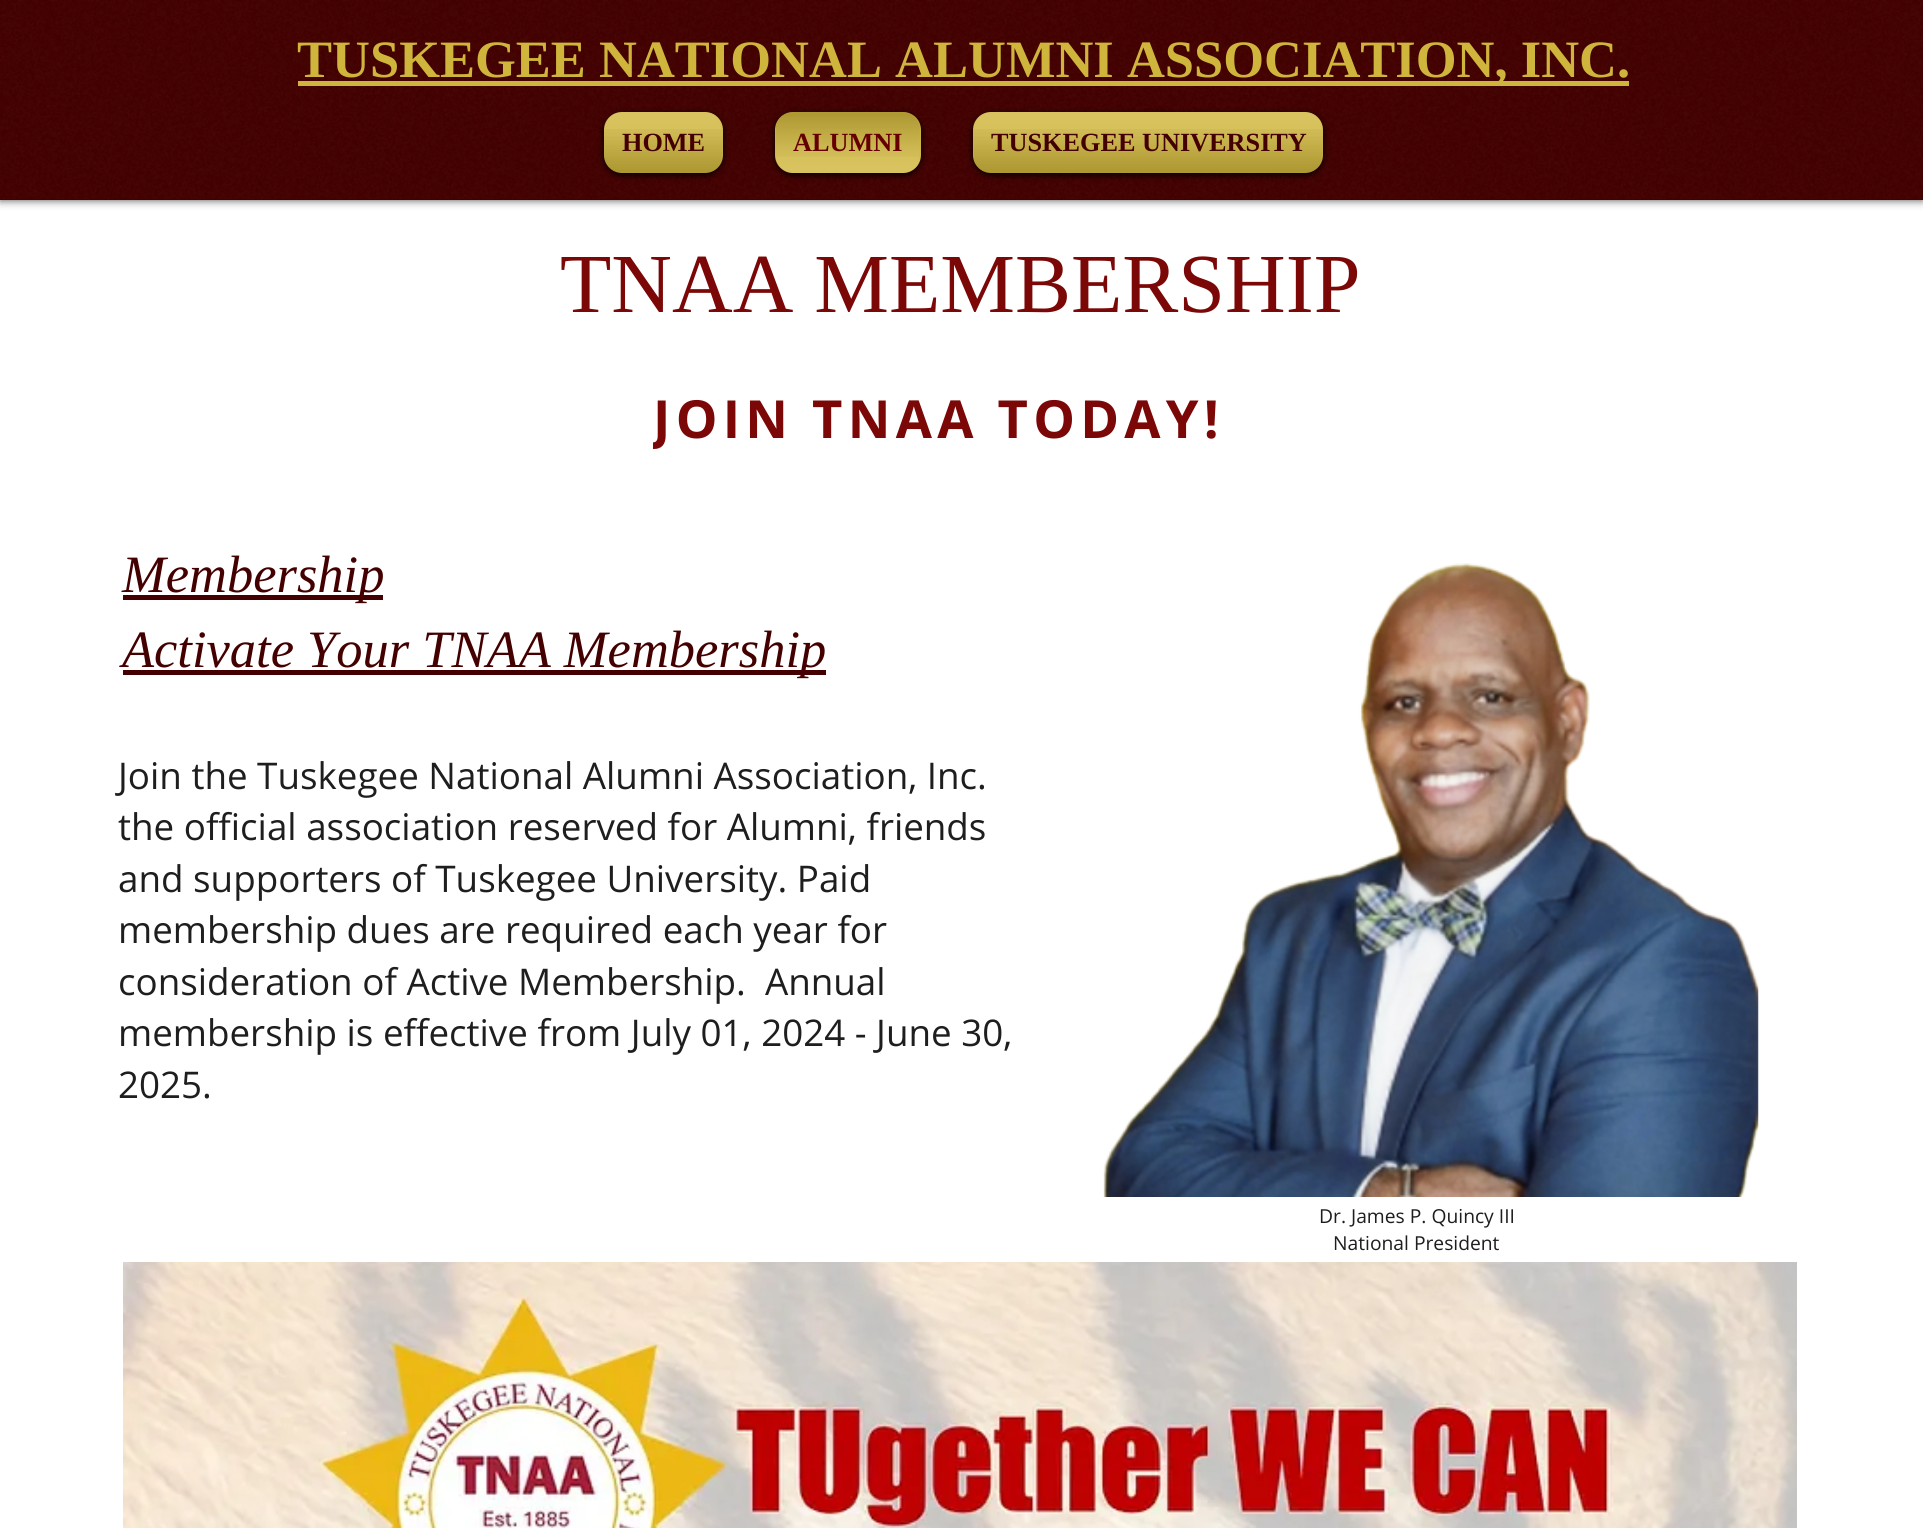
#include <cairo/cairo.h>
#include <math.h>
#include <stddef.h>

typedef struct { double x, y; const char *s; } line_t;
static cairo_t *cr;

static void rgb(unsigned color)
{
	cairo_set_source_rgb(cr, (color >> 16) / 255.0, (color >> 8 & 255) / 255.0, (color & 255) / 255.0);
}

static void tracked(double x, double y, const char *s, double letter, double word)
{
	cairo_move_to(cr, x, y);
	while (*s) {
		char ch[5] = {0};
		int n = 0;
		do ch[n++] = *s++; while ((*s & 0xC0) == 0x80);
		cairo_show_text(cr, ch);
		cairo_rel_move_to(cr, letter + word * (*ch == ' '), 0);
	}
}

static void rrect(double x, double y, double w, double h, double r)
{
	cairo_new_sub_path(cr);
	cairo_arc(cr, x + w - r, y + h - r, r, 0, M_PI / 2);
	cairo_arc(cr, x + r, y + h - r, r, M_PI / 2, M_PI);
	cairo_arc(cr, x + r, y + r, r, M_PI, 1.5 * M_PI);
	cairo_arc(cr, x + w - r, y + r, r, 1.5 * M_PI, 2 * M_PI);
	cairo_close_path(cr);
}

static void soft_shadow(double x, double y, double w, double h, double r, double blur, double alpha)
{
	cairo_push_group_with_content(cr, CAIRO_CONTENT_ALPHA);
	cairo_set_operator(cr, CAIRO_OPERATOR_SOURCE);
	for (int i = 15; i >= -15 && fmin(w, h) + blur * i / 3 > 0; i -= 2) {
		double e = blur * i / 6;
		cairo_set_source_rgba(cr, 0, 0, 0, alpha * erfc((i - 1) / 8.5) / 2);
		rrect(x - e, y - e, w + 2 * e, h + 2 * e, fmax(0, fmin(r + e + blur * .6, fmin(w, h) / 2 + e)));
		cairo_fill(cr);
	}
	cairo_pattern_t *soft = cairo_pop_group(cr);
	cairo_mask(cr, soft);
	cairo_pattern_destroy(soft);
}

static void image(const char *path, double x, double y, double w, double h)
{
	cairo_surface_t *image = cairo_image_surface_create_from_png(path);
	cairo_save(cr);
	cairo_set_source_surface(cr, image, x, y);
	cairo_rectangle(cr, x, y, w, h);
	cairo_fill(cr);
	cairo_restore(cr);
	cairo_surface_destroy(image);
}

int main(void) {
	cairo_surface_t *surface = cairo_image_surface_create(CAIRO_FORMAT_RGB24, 1923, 1528);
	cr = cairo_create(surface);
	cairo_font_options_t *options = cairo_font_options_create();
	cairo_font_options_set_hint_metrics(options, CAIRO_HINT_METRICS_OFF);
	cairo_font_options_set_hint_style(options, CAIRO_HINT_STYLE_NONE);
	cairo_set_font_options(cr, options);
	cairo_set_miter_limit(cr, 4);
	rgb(0xffffff);
	cairo_paint(cr);
	rgb(0x000000);
	soft_shadow(0, 0, 1923, 200, 0, 4.5, 0.7);
	rgb(0x440000);
	cairo_rectangle(cr, 0, 0, 1923, 200);
	cairo_fill(cr);
	image("img/1.png", 0, 0, 1923, 199);
	rgb(0xcfb53b);
	cairo_rectangle(cr, 298, 81, 1331, 5);
	cairo_fill(cr);
	rgb(0x000000);
	soft_shadow(604, 114, 119, 61, 18, 3.5, 1);
	rgb(0xcfb53b);
	rrect(604, 112, 119, 61, 18);
	cairo_fill(cr);
	image("img/2.png", 604, 112, 119, 57);
	image("img/3.png", 604, 129, 119, 44);
	rgb(0x000000);
	soft_shadow(775, 114, 146, 61, 18, 3.5, 1);
	rgb(0xcfb53b);
	rrect(775, 112, 146, 61, 18);
	cairo_fill(cr);
	image("img/4.png", 775, 112, 146, 45);
	image("img/5.png", 775, 116, 146, 57);
	rgb(0x000000);
	soft_shadow(973, 114, 350, 61, 18, 3.5, 1);
	rgb(0xcfb53b);
	rrect(973, 112, 350, 61, 18);
	cairo_fill(cr);
	image("img/6.png", 973, 112, 350, 57);
	image("img/7.png", 973, 129, 350, 44);
	rgb(0x440000);
	cairo_rectangle(cr, 123, 595, 260, 5);
	cairo_fill(cr);
	cairo_rectangle(cr, 123, 670, 703, 5);
	cairo_fill(cr);
	image("img/8.png", 1103, 563, 656, 634);
	image("img/9.png", 123, 1262, 1674, 266);
	cairo_select_font_face(cr, "Liberation Serif", CAIRO_FONT_SLANT_NORMAL, CAIRO_FONT_WEIGHT_BOLD);
	cairo_set_font_size(cr, 52.5);
	rgb(0xcfb53b);
	cairo_move_to(cr, 297, 77);
	cairo_show_text(cr, "TUSKEGEE NATIONAL ALUMNI ASSOCIATION, INC.");
	cairo_set_font_size(cr, 26.25);
	rgb(0x440000);
	cairo_move_to(cr, 622, 151);
	cairo_show_text(cr, "HOME");
	rgb(0x660000);
	cairo_move_to(cr, 793, 151);
	cairo_show_text(cr, "ALUMNI");
	rgb(0x440000);
	cairo_move_to(cr, 991, 151);
	cairo_show_text(cr, "TUSKEGEE UNIVERSITY");
	cairo_select_font_face(cr, "Liberation Serif", CAIRO_FONT_SLANT_NORMAL, CAIRO_FONT_WEIGHT_NORMAL);
	cairo_set_font_size(cr, 84);
	rgb(0x7b0707);
	cairo_move_to(cr, 560, 312);
	cairo_show_text(cr, "TNAA MEMBERSHIP");
	cairo_save(cr);
	cairo_rectangle(cr, 653, 382, 572, 71);
	cairo_clip(cr);
	cairo_select_font_face(cr, "Open Sans", CAIRO_FONT_SLANT_NORMAL, CAIRO_FONT_WEIGHT_BOLD);
	cairo_set_font_size(cr, 52.5);
	tracked(653, 438, "JOIN TNAA TODAY!", 5.25, 0);
	cairo_restore(cr);
	cairo_select_font_face(cr, "Liberation Serif", CAIRO_FONT_SLANT_ITALIC, CAIRO_FONT_WEIGHT_NORMAL);
	cairo_set_font_size(cr, 52.5);
	rgb(0x440000);
	cairo_move_to(cr, 122, 592);
	cairo_show_text(cr, "Membership");
	cairo_move_to(cr, 122, 667);
	cairo_show_text(cr, "Activate Your TNAA Membership");
	cairo_select_font_face(cr, "Open Sans", CAIRO_FONT_SLANT_NORMAL, CAIRO_FONT_WEIGHT_NORMAL);
	cairo_set_font_size(cr, 36.75);
	rgb(0x1e1e1e);
	{
		static const line_t items[] = {
			{118, 789, "Join the Tuskegee National Alumni Association, Inc."},
			{118, 840, "the official association reserved for Alumni, friends"},
			{118, 892, "and supporters of Tuskegee University. Paid"},
			{118, 943, "membership dues are required each year for"},
			{118, 995, "consideration of Active Membership.  Annual"},
			{118, 1046, "membership is effective from July 01, 2024 - June 30,"},
			{118, 1098, "2025."},
		};
		for (size_t i = 0; i < sizeof items / sizeof *items; i++) {
			cairo_move_to(cr, items[i].x, items[i].y);
			cairo_show_text(cr, items[i].s);
		}
	}
	cairo_set_font_size(cr, 19.25);
	cairo_move_to(cr, 1319, 1223);
	cairo_show_text(cr, "Dr. James P. Quincy III");
	cairo_move_to(cr, 1333, 1250);
	cairo_show_text(cr, "National President");
	cairo_surface_write_to_png(surface, "page.png");
	cairo_font_options_destroy(options);
	cairo_destroy(cr);
	cairo_surface_destroy(surface);
	return 0;
}
